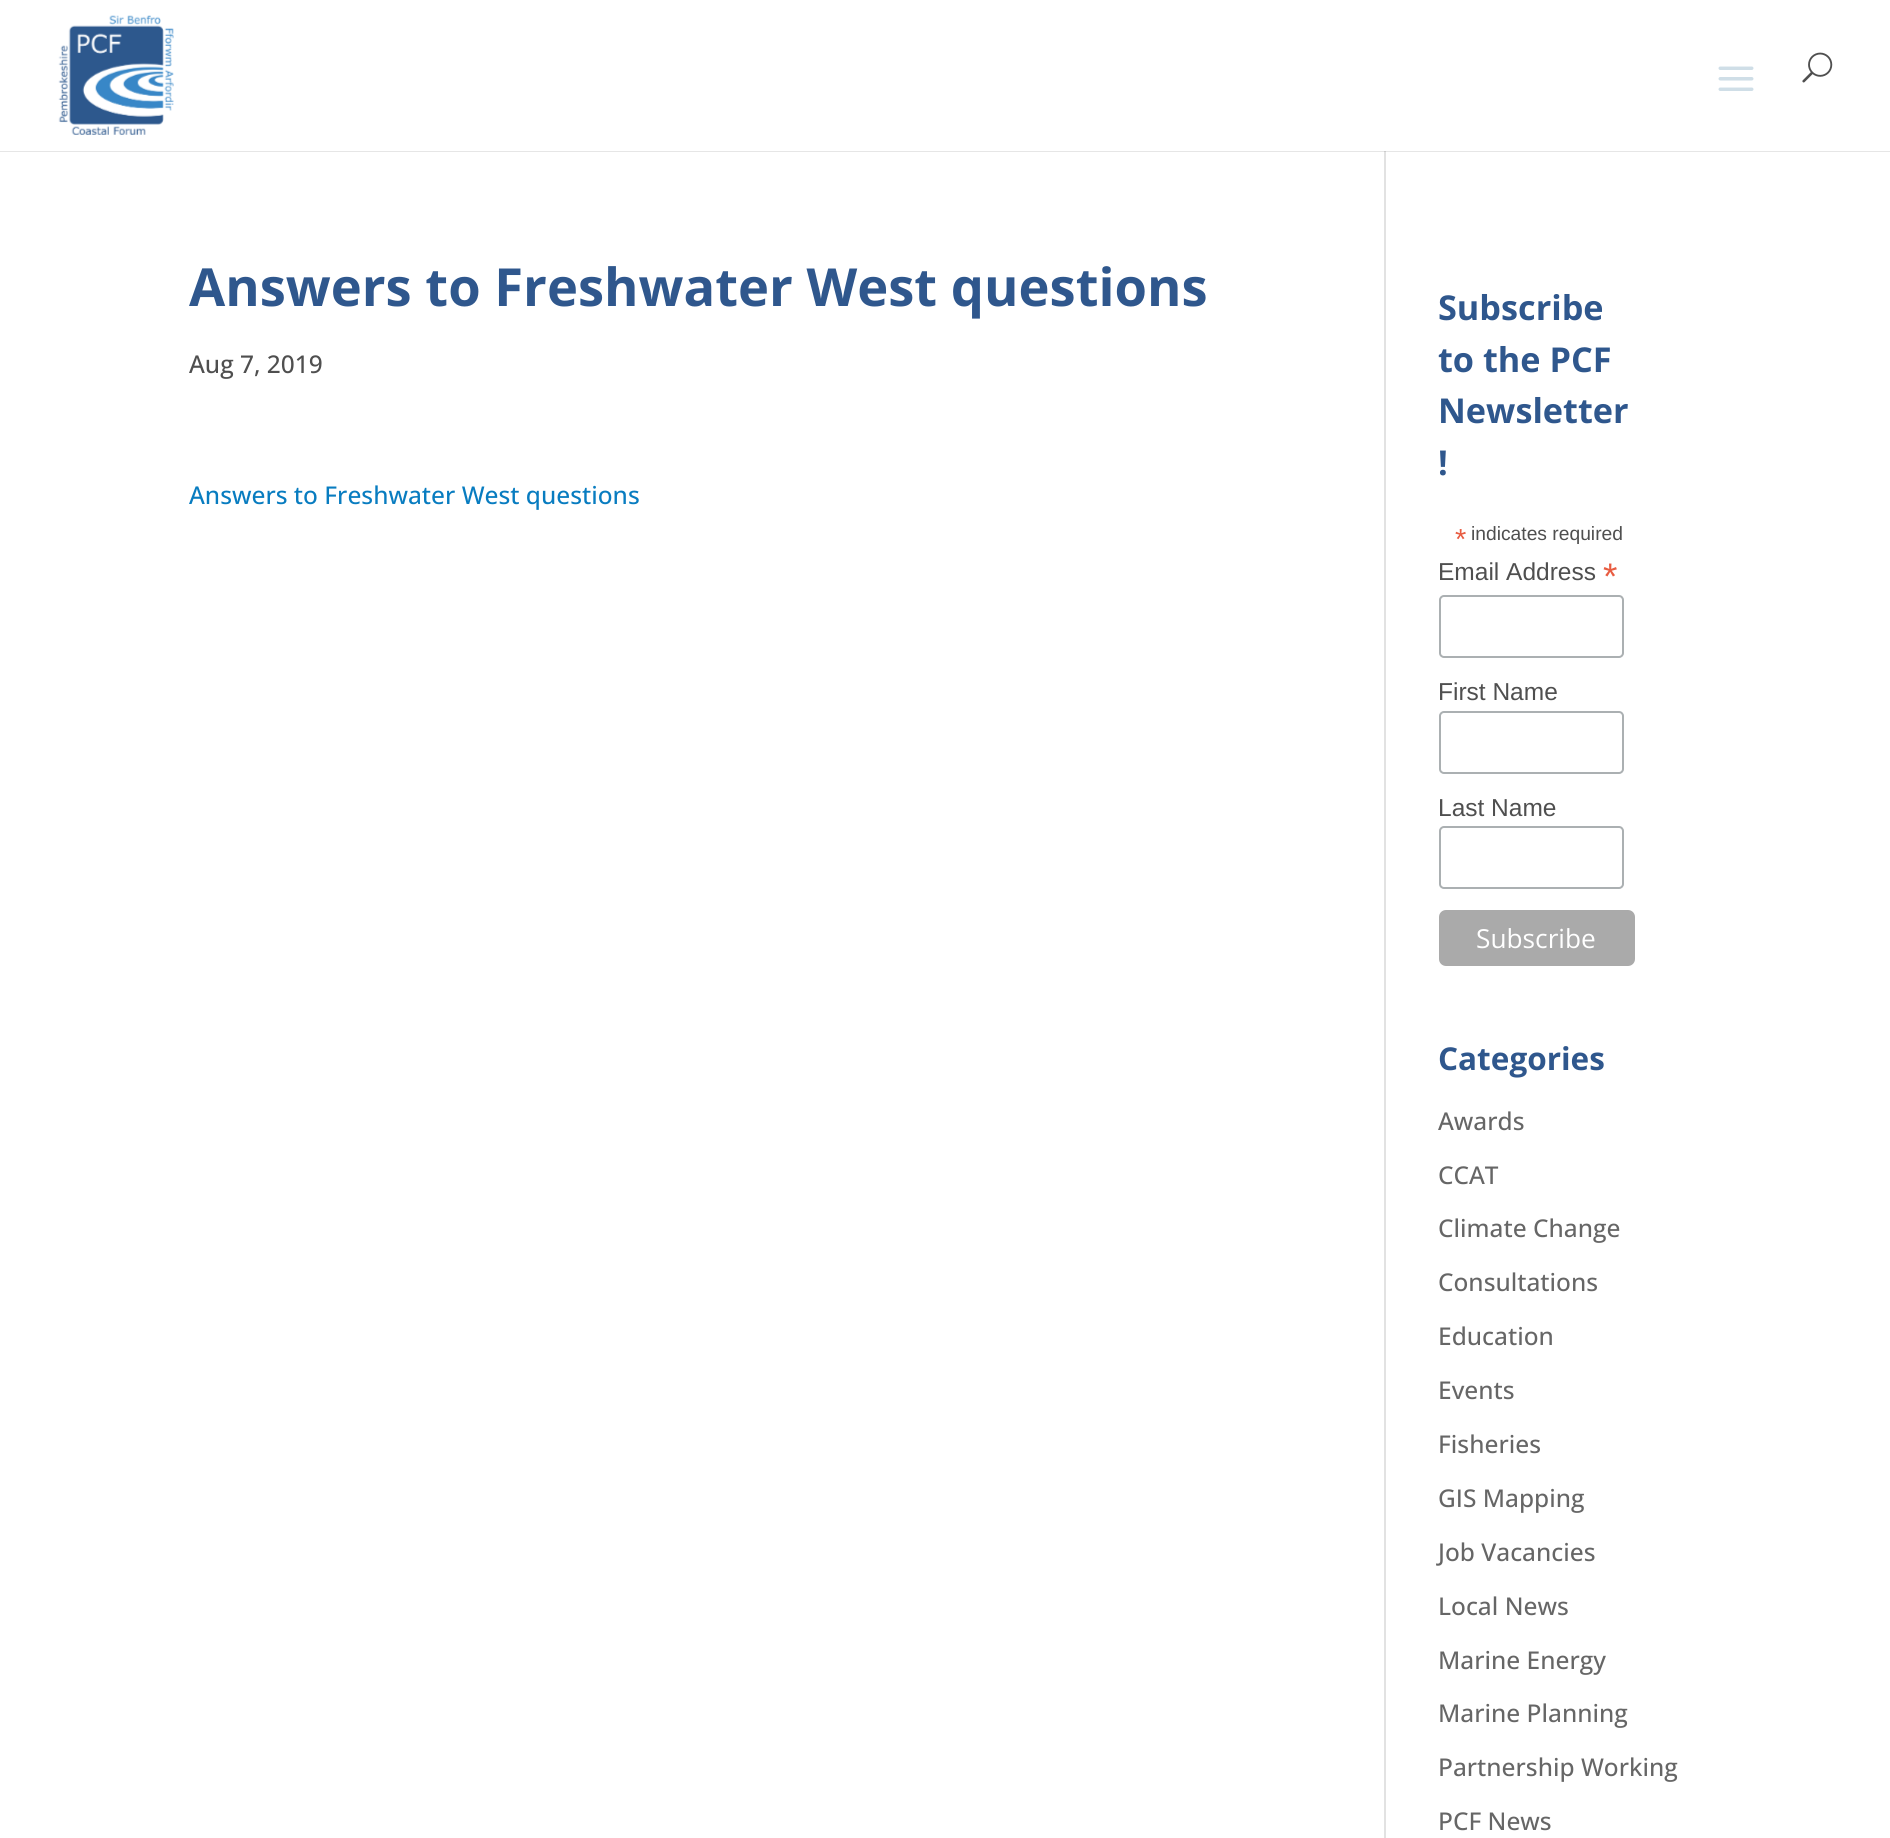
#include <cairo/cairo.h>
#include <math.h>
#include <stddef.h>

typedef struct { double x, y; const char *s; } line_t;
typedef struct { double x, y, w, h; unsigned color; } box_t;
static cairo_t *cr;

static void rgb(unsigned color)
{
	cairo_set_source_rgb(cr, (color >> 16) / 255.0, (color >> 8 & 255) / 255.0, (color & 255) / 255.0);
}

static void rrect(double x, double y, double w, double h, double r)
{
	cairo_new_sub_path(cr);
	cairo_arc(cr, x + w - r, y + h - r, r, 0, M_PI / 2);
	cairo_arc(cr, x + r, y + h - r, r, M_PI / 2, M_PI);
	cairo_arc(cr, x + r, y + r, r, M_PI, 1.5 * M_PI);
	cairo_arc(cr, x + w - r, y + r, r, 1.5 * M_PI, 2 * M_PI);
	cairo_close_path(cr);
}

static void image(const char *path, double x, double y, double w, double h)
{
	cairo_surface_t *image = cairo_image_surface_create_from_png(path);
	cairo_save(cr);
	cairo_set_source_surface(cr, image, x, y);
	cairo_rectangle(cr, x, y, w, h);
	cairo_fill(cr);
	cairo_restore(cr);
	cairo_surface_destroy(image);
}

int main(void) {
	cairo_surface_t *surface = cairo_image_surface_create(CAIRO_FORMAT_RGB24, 1890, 1838);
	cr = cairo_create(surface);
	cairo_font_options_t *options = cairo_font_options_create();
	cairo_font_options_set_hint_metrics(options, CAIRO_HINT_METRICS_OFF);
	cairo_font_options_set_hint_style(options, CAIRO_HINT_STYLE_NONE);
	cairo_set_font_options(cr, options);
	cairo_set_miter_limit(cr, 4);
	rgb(0xffffff);
	cairo_paint(cr);
	{
		static const box_t items[] = {
			{0, 151, 1890, 1, 0xe6e6e6},
			{1384, 145, 2, 1693, 0xe2e2e2},
			{1384, 145, 2, 6, 0xffffff},
		};
		for (size_t i = 0; i < sizeof items / sizeof *items; i++) {
			rgb(items[i].color);
			cairo_rectangle(cr, items[i].x, items[i].y, items[i].w, items[i].h);
			cairo_fill(cr);
		}
	}
	image("img/1.png", 58, 15, 116, 120);
	image("img/2.png", 1718, 66, 36, 25);
	image("img/3.png", 1802, 52, 31, 31);
	rgb(0xcbcbcb);
	cairo_rectangle(cr, 1384, 151, 2, 1);
	cairo_fill(cr);
	rrect(1440, 596, 183, 61, 4);
	rgb(0xabb0b2);
	cairo_stroke(cr);
	rrect(1440, 712, 183, 61, 4);
	cairo_stroke(cr);
	rrect(1440, 827, 183, 61, 4);
	cairo_stroke(cr);
	rgb(0xaaaaaa);
	rrect(1439, 910, 196, 56, 7);
	cairo_fill(cr);
	cairo_select_font_face(cr, "Open Sans", CAIRO_FONT_SLANT_NORMAL, CAIRO_FONT_WEIGHT_BOLD);
	cairo_set_font_size(cr, 52.5);
	rgb(0x2f578d);
	cairo_move_to(cr, 189, 306);
	cairo_show_text(cr, "Answers to Freshwater West questions");
	cairo_select_font_face(cr, "Open Sans Medium", CAIRO_FONT_SLANT_NORMAL, CAIRO_FONT_WEIGHT_NORMAL);
	cairo_set_font_size(cr, 24.5);
	rgb(0x4f4f4f);
	cairo_move_to(cr, 189, 373);
	cairo_show_text(cr, "Aug 7, 2019");
	rgb(0x087cc0);
	cairo_move_to(cr, 189, 504);
	cairo_show_text(cr, "Answers to Freshwater West questions");
	cairo_select_font_face(cr, "Open Sans", CAIRO_FONT_SLANT_NORMAL, CAIRO_FONT_WEIGHT_BOLD);
	cairo_set_font_size(cr, 34.25);
	rgb(0x2f578d);
	{
		static const line_t items[] = {
			{1438, 320, "Subscribe"},
			{1438, 372, "to the PCF"},
			{1438, 423, "Newsletter"},
			{1438, 475, "!"},
		};
		for (size_t i = 0; i < sizeof items / sizeof *items; i++) {
			cairo_move_to(cr, items[i].x, items[i].y);
			cairo_show_text(cr, items[i].s);
		}
	}
	cairo_select_font_face(cr, "Liberation Sans", CAIRO_FONT_SLANT_NORMAL, CAIRO_FONT_WEIGHT_NORMAL);
	cairo_set_font_size(cr, 29);
	rgb(0xe85c41);
	cairo_move_to(cr, 1455, 549);
	cairo_show_text(cr, "*");
	cairo_set_font_size(cr, 19.25);
	rgb(0x4f4f4f);
	cairo_move_to(cr, 1471, 540);
	cairo_show_text(cr, "indicates required");
	cairo_set_font_size(cr, 24.5);
	cairo_move_to(cr, 1438, 580);
	cairo_show_text(cr, "Email Address");
	cairo_set_font_size(cr, 37);
	rgb(0xe85c41);
	cairo_move_to(cr, 1603, 589);
	cairo_show_text(cr, "*");
	cairo_set_font_size(cr, 24.5);
	rgb(0x4f4f4f);
	cairo_move_to(cr, 1438, 700);
	cairo_show_text(cr, "First Name");
	cairo_move_to(cr, 1438, 816);
	cairo_show_text(cr, "Last Name");
	cairo_select_font_face(cr, "Open Sans", CAIRO_FONT_SLANT_NORMAL, CAIRO_FONT_WEIGHT_NORMAL);
	cairo_set_font_size(cr, 26.25);
	rgb(0xffffff);
	cairo_move_to(cr, 1476, 948);
	cairo_show_text(cr, "Subscribe");
	cairo_select_font_face(cr, "Open Sans", CAIRO_FONT_SLANT_NORMAL, CAIRO_FONT_WEIGHT_BOLD);
	cairo_set_font_size(cr, 31.5);
	rgb(0x2f578d);
	cairo_move_to(cr, 1438, 1070);
	cairo_show_text(cr, "Categories");
	cairo_select_font_face(cr, "Open Sans Medium", CAIRO_FONT_SLANT_NORMAL, CAIRO_FONT_WEIGHT_NORMAL);
	cairo_set_font_size(cr, 24.5);
	rgb(0x666666);
	{
		static const line_t items[] = {
			{1438, 1130, "Awards"},
			{1438, 1184, "CCAT"},
			{1438, 1237, "Climate Change"},
			{1438, 1291, "Consultations"},
			{1438, 1345, "Education"},
			{1438, 1399, "Events"},
			{1438, 1453, "Fisheries"},
			{1438, 1507, "GIS Mapping"},
			{1438, 1561, "Job Vacancies"},
			{1438, 1615, "Local News"},
			{1438, 1669, "Marine Energy"},
			{1438, 1722, "Marine Planning"},
			{1438, 1776, "Partnership Working"},
			{1438, 1830, "PCF News"},
		};
		for (size_t i = 0; i < sizeof items / sizeof *items; i++) {
			cairo_move_to(cr, items[i].x, items[i].y);
			cairo_show_text(cr, items[i].s);
		}
	}
	cairo_surface_write_to_png(surface, "page.png");
	cairo_font_options_destroy(options);
	cairo_destroy(cr);
	cairo_surface_destroy(surface);
	return 0;
}
